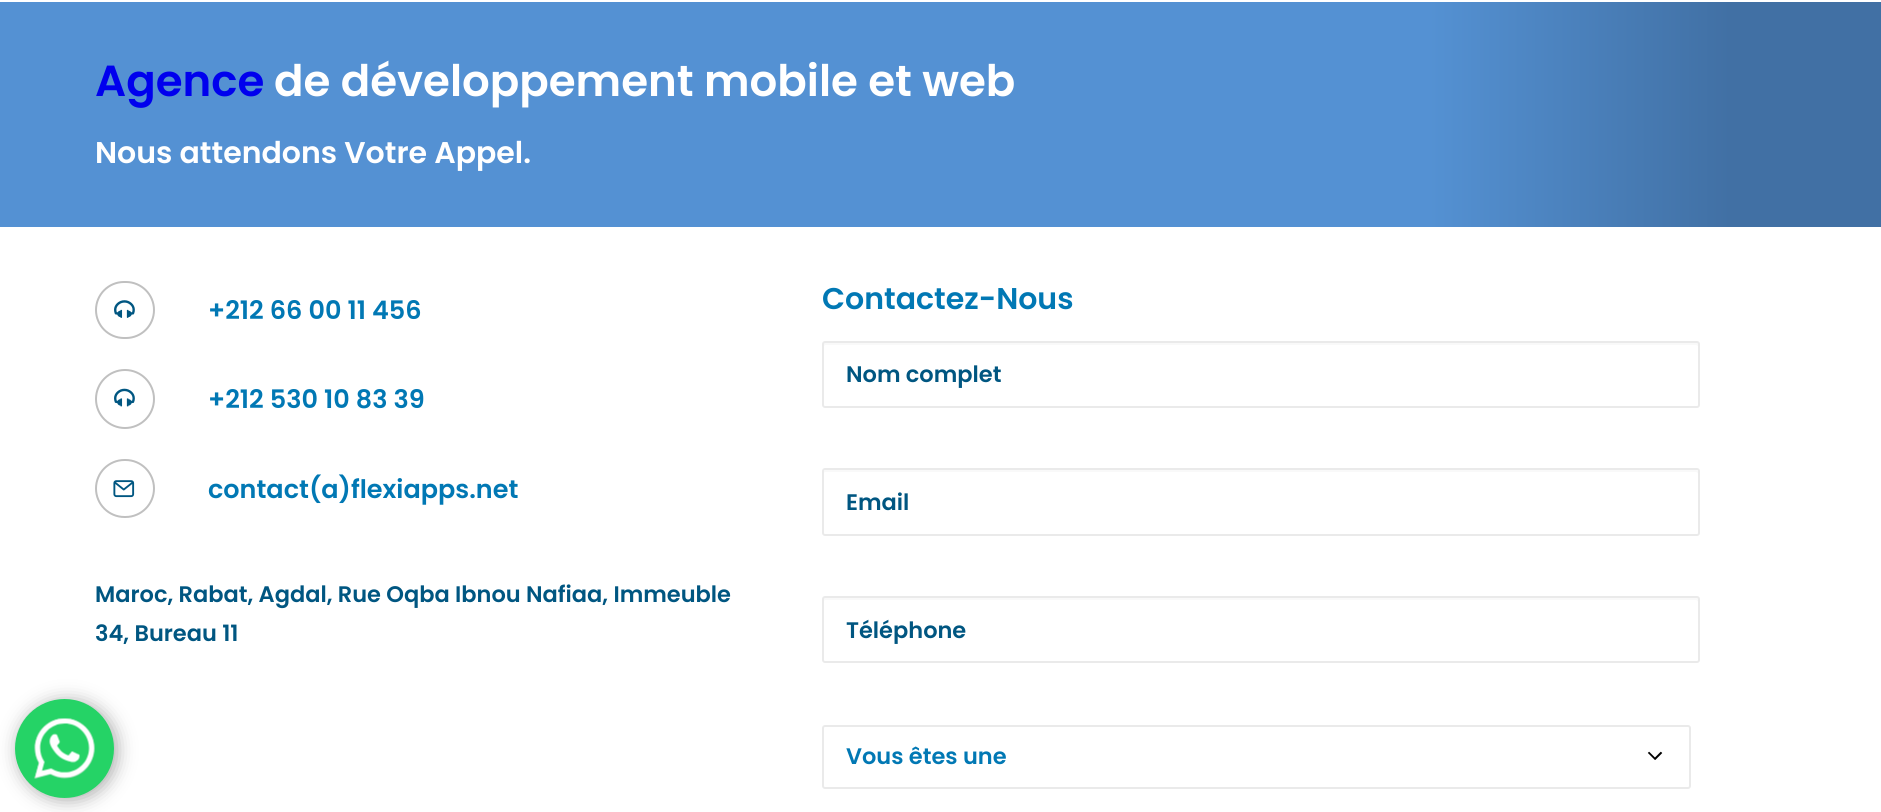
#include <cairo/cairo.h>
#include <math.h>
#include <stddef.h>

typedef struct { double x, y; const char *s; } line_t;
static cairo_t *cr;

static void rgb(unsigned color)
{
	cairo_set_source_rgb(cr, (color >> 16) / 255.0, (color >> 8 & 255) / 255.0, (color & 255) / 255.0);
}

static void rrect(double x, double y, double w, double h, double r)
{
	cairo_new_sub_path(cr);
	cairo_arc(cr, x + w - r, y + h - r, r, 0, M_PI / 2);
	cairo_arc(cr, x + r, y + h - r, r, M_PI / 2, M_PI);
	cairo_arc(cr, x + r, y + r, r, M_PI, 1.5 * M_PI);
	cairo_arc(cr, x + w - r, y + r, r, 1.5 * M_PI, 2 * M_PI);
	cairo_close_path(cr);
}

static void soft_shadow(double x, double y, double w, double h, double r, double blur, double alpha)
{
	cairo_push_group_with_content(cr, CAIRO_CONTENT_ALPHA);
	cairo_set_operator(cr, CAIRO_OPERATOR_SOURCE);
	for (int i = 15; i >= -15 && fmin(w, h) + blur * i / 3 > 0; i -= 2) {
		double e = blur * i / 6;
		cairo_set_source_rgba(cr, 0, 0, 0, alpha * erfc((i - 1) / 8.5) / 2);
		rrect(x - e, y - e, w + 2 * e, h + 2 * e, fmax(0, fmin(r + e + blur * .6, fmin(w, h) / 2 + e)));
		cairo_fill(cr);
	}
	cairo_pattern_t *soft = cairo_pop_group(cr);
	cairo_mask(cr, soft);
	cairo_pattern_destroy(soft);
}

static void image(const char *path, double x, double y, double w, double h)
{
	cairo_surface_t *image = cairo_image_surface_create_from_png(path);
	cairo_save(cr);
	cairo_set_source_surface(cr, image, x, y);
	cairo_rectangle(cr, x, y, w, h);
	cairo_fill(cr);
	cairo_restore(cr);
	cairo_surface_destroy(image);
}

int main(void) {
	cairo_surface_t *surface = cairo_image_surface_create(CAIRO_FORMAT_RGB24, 1881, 812);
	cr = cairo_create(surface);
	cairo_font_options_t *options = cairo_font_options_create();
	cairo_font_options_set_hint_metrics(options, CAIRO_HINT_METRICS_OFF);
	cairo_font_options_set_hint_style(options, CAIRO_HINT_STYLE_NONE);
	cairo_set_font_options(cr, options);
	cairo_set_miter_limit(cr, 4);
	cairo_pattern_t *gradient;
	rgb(0xffffff);
	cairo_paint(cr);
	rgb(0xaaaaaa);
	soft_shadow(18, 701, 99, 99, 49.5, 9, 1);
	rgb(0x25d366);
	cairo_arc(cr, 64.5, 748.5, 49.5, 0, 2 * M_PI);
	cairo_fill(cr);
	image("img/1.png", 34, 718, 61, 61);
	gradient = cairo_pattern_create_linear(0, 114, 1881, 114);
	cairo_pattern_add_color_stop_rgba(gradient, 0.76, 0.329, 0.569, 0.827, 1);
	cairo_pattern_add_color_stop_rgba(gradient, 0.92, 0.255, 0.439, 0.643, 1);
	cairo_set_source(cr, gradient);
	cairo_pattern_destroy(gradient);
	cairo_rectangle(cr, 0, 2, 1881, 225);
	cairo_fill(cr);
	rrect(96, 282, 58, 56, 28);
	rgb(0xc0c0c0);
	cairo_stroke(cr);
	image("img/2.png", 114, 300, 21, 18);
	cairo_arc(cr, 125, 399, 29, 0, 2 * M_PI);
	cairo_stroke(cr);
	image("img/3.png", 114, 388, 21, 19);
	rrect(96, 460, 58, 57, 28.5);
	cairo_stroke(cr);
	image("img/4.png", 113, 480, 22, 18);
	rgb(0xf9f9f9);
	cairo_new_path(cr);
	cairo_move_to(cr, 825, 345);
	cairo_line_to(cr, 1696, 345);
	cairo_line_to(cr, 1698, 346);
	cairo_line_to(cr, 1698, 343);
	cairo_line_to(cr, 1696, 342);
	cairo_line_to(cr, 826, 342);
	cairo_curve_to(cr, 823, 342, 824, 345, 824, 346);
	cairo_close_path(cr);
	cairo_fill(cr);
	rrect(823, 342, 876, 65, 2);
	rgb(0xeaeaea);
	cairo_stroke(cr);
	rgb(0xf9f9f9);
	cairo_new_path(cr);
	cairo_move_to(cr, 825, 472);
	cairo_line_to(cr, 1696, 472);
	cairo_curve_to(cr, 1697, 472, 1698, 473, 1698, 474);
	cairo_line_to(cr, 1698, 471);
	cairo_line_to(cr, 1696, 470);
	cairo_line_to(cr, 826, 470);
	cairo_curve_to(cr, 823, 470, 824, 473, 824, 474);
	cairo_curve_to(cr, 824, 473, 824, 472, 825, 472);
	cairo_close_path(cr);
	cairo_fill(cr);
	rrect(823, 469, 876, 66, 2);
	rgb(0xeaeaea);
	cairo_stroke(cr);
	rgb(0xf9f9f9);
	cairo_new_path(cr);
	cairo_move_to(cr, 825, 600);
	cairo_line_to(cr, 1696, 600);
	cairo_curve_to(cr, 1697, 600, 1698, 601, 1698, 602);
	cairo_line_to(cr, 1698, 598);
	cairo_curve_to(cr, 1698, 598, 1697, 597, 1696, 597);
	cairo_line_to(cr, 826, 597);
	cairo_curve_to(cr, 825, 597, 824, 598, 824, 598);
	cairo_line_to(cr, 824, 602);
	cairo_curve_to(cr, 824, 601, 824, 600, 825, 600);
	cairo_close_path(cr);
	cairo_fill(cr);
	rrect(823, 597, 876, 65, 2);
	rgb(0xeaeaea);
	cairo_stroke(cr);
	image("img/5.png", 1647, 751, 16, 9);
	rrect(823, 726, 867, 62, 2);
	cairo_stroke(cr);
	cairo_select_font_face(cr, "Poppins SemiBold", CAIRO_FONT_SLANT_NORMAL, CAIRO_FONT_WEIGHT_NORMAL);
	cairo_set_font_size(cr, 43.5);
	rgb(0x0000ee);
	cairo_move_to(cr, 95, 96);
	cairo_show_text(cr, "Agence");
	rgb(0xffffff);
	cairo_move_to(cr, 274, 96);
	cairo_show_text(cr, "de développement mobile et web");
	cairo_set_font_size(cr, 30);
	cairo_move_to(cr, 95, 163);
	cairo_show_text(cr, "Nous attendons Votre Appel.");
	cairo_set_font_size(cr, 25.5);
	rgb(0x0178b4);
	{
		static const line_t items[] = {
			{208, 319, "+212 66 00 11 456"},
			{208, 408, "+212 530 10 83 39"},
			{208, 498, "contact(a)flexiapps.net"},
		};
		for (size_t i = 0; i < sizeof items / sizeof *items; i++) {
			cairo_move_to(cr, items[i].x, items[i].y);
			cairo_show_text(cr, items[i].s);
		}
	}
	cairo_set_font_size(cr, 22.5);
	rgb(0x005681);
	cairo_move_to(cr, 95, 602);
	cairo_show_text(cr, "Maroc, Rabat, Agdal, Rue Oqba Ibnou Nafiaa, Immeuble");
	cairo_move_to(cr, 95, 641);
	cairo_show_text(cr, "34, Bureau 11");
	cairo_set_font_size(cr, 30);
	rgb(0x0178b4);
	cairo_move_to(cr, 822, 309);
	cairo_show_text(cr, "Contactez-Nous");
	cairo_set_font_size(cr, 22.5);
	rgb(0x005681);
	{
		static const line_t items[] = {
			{846, 382, "Nom complet"},
			{846, 510, "Email"},
			{846, 638, "Téléphone"},
		};
		for (size_t i = 0; i < sizeof items / sizeof *items; i++) {
			cairo_move_to(cr, items[i].x, items[i].y);
			cairo_show_text(cr, items[i].s);
		}
	}
	rgb(0x0178b4);
	cairo_move_to(cr, 846, 764);
	cairo_show_text(cr, "Vous êtes une");
	cairo_surface_write_to_png(surface, "page.png");
	cairo_font_options_destroy(options);
	cairo_destroy(cr);
	cairo_surface_destroy(surface);
	return 0;
}
